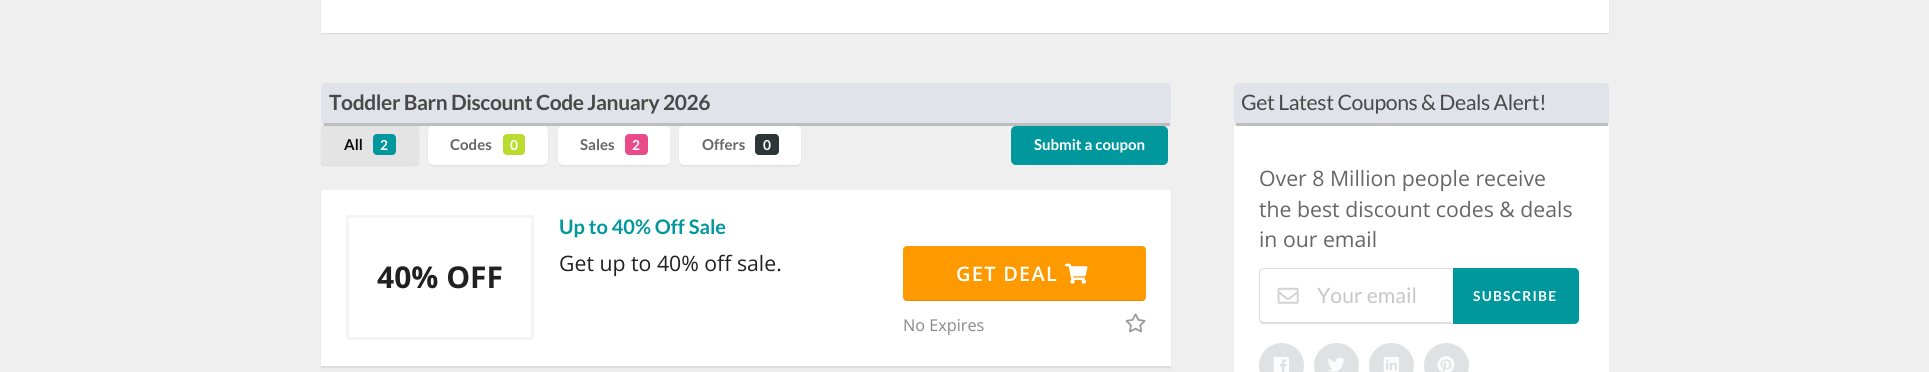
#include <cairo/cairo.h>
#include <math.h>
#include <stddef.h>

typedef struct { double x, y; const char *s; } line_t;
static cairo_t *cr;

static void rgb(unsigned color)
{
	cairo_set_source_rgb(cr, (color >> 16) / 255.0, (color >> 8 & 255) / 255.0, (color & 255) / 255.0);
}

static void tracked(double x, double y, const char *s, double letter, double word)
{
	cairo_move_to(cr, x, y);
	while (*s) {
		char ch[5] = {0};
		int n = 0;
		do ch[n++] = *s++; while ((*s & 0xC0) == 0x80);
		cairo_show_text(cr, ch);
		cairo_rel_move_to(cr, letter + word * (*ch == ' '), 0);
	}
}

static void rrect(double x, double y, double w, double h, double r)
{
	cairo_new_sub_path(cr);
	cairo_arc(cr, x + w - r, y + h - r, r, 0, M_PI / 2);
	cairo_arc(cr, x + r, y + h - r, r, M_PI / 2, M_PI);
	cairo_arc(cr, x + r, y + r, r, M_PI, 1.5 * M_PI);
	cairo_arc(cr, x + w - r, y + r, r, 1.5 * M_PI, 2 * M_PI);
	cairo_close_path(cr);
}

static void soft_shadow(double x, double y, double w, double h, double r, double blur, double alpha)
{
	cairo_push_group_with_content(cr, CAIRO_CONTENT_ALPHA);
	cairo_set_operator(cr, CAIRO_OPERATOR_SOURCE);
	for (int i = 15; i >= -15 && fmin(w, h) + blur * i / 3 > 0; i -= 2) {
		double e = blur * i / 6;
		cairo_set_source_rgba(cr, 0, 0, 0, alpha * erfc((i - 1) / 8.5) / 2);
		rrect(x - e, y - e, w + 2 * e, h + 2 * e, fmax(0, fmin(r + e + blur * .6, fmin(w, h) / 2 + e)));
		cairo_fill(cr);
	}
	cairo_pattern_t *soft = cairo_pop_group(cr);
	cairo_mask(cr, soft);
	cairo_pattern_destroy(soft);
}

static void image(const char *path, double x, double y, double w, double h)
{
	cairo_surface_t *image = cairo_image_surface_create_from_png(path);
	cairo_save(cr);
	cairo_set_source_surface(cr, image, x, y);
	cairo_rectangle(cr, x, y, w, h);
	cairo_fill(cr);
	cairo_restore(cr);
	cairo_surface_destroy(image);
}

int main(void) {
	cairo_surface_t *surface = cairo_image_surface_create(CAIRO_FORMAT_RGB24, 1929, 372);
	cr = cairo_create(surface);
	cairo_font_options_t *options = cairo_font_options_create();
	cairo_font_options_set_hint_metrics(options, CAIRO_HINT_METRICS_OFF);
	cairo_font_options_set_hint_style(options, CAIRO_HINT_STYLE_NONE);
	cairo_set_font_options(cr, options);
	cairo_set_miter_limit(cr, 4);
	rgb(0xefefef);
	cairo_paint(cr);
	rgb(0x000000);
	soft_shadow(321, -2, 1288, 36, 0, 0.5, 0.08);
	rgb(0xffffff);
	cairo_rectangle(cr, 321, 0, 1288, 33);
	cairo_fill(cr);
	rgb(0xe0e3ea);
	rrect(321, 83, 850, 42, 4);
	cairo_fill(cr);
	rgb(0xbcbdbd);
	cairo_rectangle(cr, 324, 123, 846, 3);
	cairo_fill(cr);
	cairo_save(cr);
	cairo_set_fill_rule(cr, CAIRO_FILL_RULE_EVEN_ODD);
	cairo_new_path(cr);
	cairo_move_to(cr, 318, 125);
	cairo_line_to(cr, 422, 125);
	cairo_line_to(cr, 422, 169);
	cairo_line_to(cr, 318, 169);
	cairo_close_path(cr);
	cairo_move_to(cr, 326, 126);
	cairo_line_to(cr, 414, 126);
	cairo_curve_to(cr, 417, 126, 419, 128, 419, 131);
	cairo_line_to(cr, 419, 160);
	cairo_curve_to(cr, 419, 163, 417, 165, 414, 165);
	cairo_line_to(cr, 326, 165);
	cairo_curve_to(cr, 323, 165, 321, 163, 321, 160);
	cairo_line_to(cr, 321, 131);
	cairo_curve_to(cr, 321, 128, 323, 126, 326, 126);
	cairo_close_path(cr);
	cairo_clip(cr);
	rgb(0x000000);
	soft_shadow(321, 128, 98, 38, 5, 0.5, 0.08);
	cairo_restore(cr);
	cairo_set_source_rgba(cr, 0, 0, 0, 0.05);
	cairo_rectangle(cr, 321, 126, 98, 39);
	cairo_fill(cr);
	rgb(0x00979d);
	rrect(373, 134, 23, 21, 4);
	cairo_fill(cr);
	rgb(0x000000);
	soft_shadow(428, 128, 120, 38, 5, 0.5, 0.08);
	rgb(0xffffff);
	rrect(428, 126, 120, 39, 5);
	cairo_fill(cr);
	rgb(0xb9dc2f);
	rrect(503, 134, 22, 21, 4);
	cairo_fill(cr);
	rgb(0x000000);
	soft_shadow(558, 128, 112, 38, 5, 0.5, 0.08);
	rgb(0xffffff);
	rrect(558, 126, 112, 39, 5);
	cairo_fill(cr);
	rgb(0xea4c89);
	rrect(625, 134, 23, 21, 4);
	cairo_fill(cr);
	rgb(0x000000);
	soft_shadow(679, 128, 122, 38, 5, 0.5, 0.08);
	rgb(0xffffff);
	rrect(679, 126, 122, 39, 5);
	cairo_fill(cr);
	rgb(0x2d3538);
	rrect(755, 134, 24, 21, 4);
	cairo_fill(cr);
	rgb(0x00979d);
	rrect(1011, 126, 157, 39, 5);
	cairo_fill(cr);
	rgb(0x000000);
	soft_shadow(321, 191, 850, 177, 0, 0.5, 0.08);
	rgb(0xffffff);
	cairo_rectangle(cr, 321, 190, 850, 176);
	cairo_fill(cr);
	rrect(347.5, 216.5, 185, 122, 1);
	rgb(0xf5f5f5);
	cairo_set_line_width(cr, 3);
	cairo_stroke(cr);
	rgb(0xff9900);
	rrect(903, 246, 243, 55, 4);
	cairo_fill(cr);
	cairo_set_source_rgba(cr, 0, 0, 0, 0.1);
	cairo_new_path(cr);
	cairo_move_to(cr, 904, 299);
	cairo_curve_to(cr, 904, 300, 906, 301, 907, 301);
	cairo_line_to(cr, 1142, 301);
	cairo_curve_to(cr, 1144, 301, 1146, 299, 1146, 297);
	cairo_line_to(cr, 1146, 296);
	cairo_curve_to(cr, 1146, 298, 1145, 300, 1142, 300);
	cairo_line_to(cr, 906, 300);
	cairo_close_path(cr);
	cairo_fill(cr);
	image("img/1.png", 1065, 263, 23, 21);
	image("img/2.png", 1125, 313, 21, 20);
	rgb(0xe0e3ea);
	rrect(1234, 83, 375, 42, 4);
	cairo_fill(cr);
	rgb(0xbcbdbd);
	cairo_rectangle(cr, 1236, 123, 372, 3);
	cairo_fill(cr);
	rgb(0xffffff);
	cairo_rectangle(cr, 1234, 126, 375, 246);
	cairo_fill(cr);
	image("img/3.png", 1277, 287, 22, 17);
	rgb(0xdedede);
	cairo_new_path(cr);
	cairo_move_to(cr, 1264, 268);
	cairo_line_to(cr, 1260, 269);
	cairo_line_to(cr, 1261, 270);
	cairo_line_to(cr, 1264, 269);
	cairo_line_to(cr, 1451, 269);
	cairo_line_to(cr, 1452, 268);
	cairo_close_path(cr);
	cairo_fill(cr);
	cairo_new_path(cr);
	cairo_move_to(cr, 1262, 324);
	cairo_line_to(cr, 1260, 322);
	cairo_line_to(cr, 1261, 321);
	cairo_line_to(cr, 1264, 322);
	cairo_line_to(cr, 1451, 322);
	cairo_line_to(cr, 1452, 323);
	cairo_line_to(cr, 1452, 324);
	cairo_close_path(cr);
	cairo_fill(cr);
	cairo_set_source_rgba(cr, 0.133, 0.141, 0.149, 0.15);
	cairo_new_path(cr);
	cairo_move_to(cr, 1260, 269);
	cairo_line_to(cr, 1259, 272);
	cairo_line_to(cr, 1259, 311);
	cairo_curve_to(cr, 1259, 313, 1258, 320, 1260, 322);
	cairo_line_to(cr, 1261, 321);
	cairo_line_to(cr, 1260, 319);
	cairo_line_to(cr, 1260, 272);
	cairo_line_to(cr, 1261, 270);
	cairo_close_path(cr);
	cairo_fill(cr);
	rgb(0x00979d);
	cairo_new_path(cr);
	cairo_move_to(cr, 1453, 268);
	cairo_line_to(cr, 1574, 268);
	cairo_curve_to(cr, 1577, 268, 1579, 270, 1579, 273);
	cairo_line_to(cr, 1579, 319);
	cairo_curve_to(cr, 1579, 322, 1577, 324, 1574, 324);
	cairo_line_to(cr, 1453, 324);
	cairo_close_path(cr);
	cairo_fill(cr);
	rgb(0xe0e1e2);
	cairo_arc(cr, 1281.5, 365.5, 22.5, 0, 2 * M_PI);
	cairo_fill(cr);
	image("img/4.png", 1273, 357, 16, 15);
	cairo_arc(cr, 1336.5, 365.5, 22.5, 0, 2 * M_PI);
	cairo_fill(cr);
	image("img/5.png", 1328, 357, 17, 15);
	cairo_arc(cr, 1391.5, 365.5, 22.5, 0, 2 * M_PI);
	cairo_fill(cr);
	image("img/6.png", 1383, 357, 16, 15);
	cairo_arc(cr, 1446.5, 365.5, 22.5, 0, 2 * M_PI);
	cairo_fill(cr);
	image("img/7.png", 1437, 356, 18, 16);
	cairo_select_font_face(cr, "Lato", CAIRO_FONT_SLANT_NORMAL, CAIRO_FONT_WEIGHT_BOLD);
	cairo_set_font_size(cr, 21);
	rgb(0x494949);
	tracked(329, 110, "Toddler Barn Discount Code January 2026", -0.4, 0);
	cairo_set_font_size(cr, 15);
	rgb(0x0b0b0b);
	cairo_move_to(cr, 344, 150);
	cairo_show_text(cr, "All");
	cairo_set_font_size(cr, 13.75);
	rgb(0xffffff);
	cairo_move_to(cr, 380, 150);
	cairo_show_text(cr, "2");
	cairo_set_font_size(cr, 15);
	rgb(0x666666);
	cairo_move_to(cr, 450, 150);
	cairo_show_text(cr, "Codes");
	cairo_set_font_size(cr, 13.75);
	rgb(0xffffff);
	cairo_move_to(cr, 510, 150);
	cairo_show_text(cr, "0");
	cairo_set_font_size(cr, 15);
	rgb(0x666666);
	cairo_move_to(cr, 580, 150);
	cairo_show_text(cr, "Sales");
	cairo_set_font_size(cr, 13.75);
	rgb(0xffffff);
	cairo_move_to(cr, 632, 150);
	cairo_show_text(cr, "2");
	cairo_set_font_size(cr, 15);
	rgb(0x666666);
	cairo_move_to(cr, 702, 150);
	cairo_show_text(cr, "Offers");
	cairo_set_font_size(cr, 13.75);
	rgb(0xffffff);
	cairo_move_to(cr, 763, 150);
	cairo_show_text(cr, "0");
	cairo_set_font_size(cr, 15);
	cairo_move_to(cr, 1034, 150);
	cairo_show_text(cr, "Submit a coupon");
	cairo_select_font_face(cr, "Open Sans", CAIRO_FONT_SLANT_NORMAL, CAIRO_FONT_WEIGHT_BOLD);
	cairo_set_font_size(cr, 30);
	rgb(0x212121);
	cairo_move_to(cr, 377, 288);
	cairo_show_text(cr, "40% OFF");
	cairo_select_font_face(cr, "Lato", CAIRO_FONT_SLANT_NORMAL, CAIRO_FONT_WEIGHT_BOLD);
	cairo_set_font_size(cr, 20);
	rgb(0x00979d);
	cairo_move_to(cr, 559, 234);
	cairo_show_text(cr, "Up to 40% Off Sale");
	cairo_select_font_face(cr, "Open Sans", CAIRO_FONT_SLANT_NORMAL, CAIRO_FONT_WEIGHT_NORMAL);
	cairo_set_font_size(cr, 21.25);
	rgb(0x212121);
	cairo_move_to(cr, 559, 271);
	cairo_show_text(cr, "Get up to 40% off sale.");
	cairo_select_font_face(cr, "Open Sans SemiBold", CAIRO_FONT_SLANT_NORMAL, CAIRO_FONT_WEIGHT_NORMAL);
	cairo_set_font_size(cr, 20);
	rgb(0xffffff);
	tracked(956, 281, "GET DEAL", 1.25, 0);
	cairo_select_font_face(cr, "Open Sans", CAIRO_FONT_SLANT_NORMAL, CAIRO_FONT_WEIGHT_NORMAL);
	cairo_set_font_size(cr, 16.25);
	rgb(0x888888);
	cairo_move_to(cr, 903, 331);
	cairo_show_text(cr, "No Expires");
	cairo_select_font_face(cr, "Lato", CAIRO_FONT_SLANT_NORMAL, CAIRO_FONT_WEIGHT_NORMAL);
	cairo_set_font_size(cr, 21.25);
	rgb(0x494949);
	tracked(1241, 110, "Get Latest Coupons & Deals Alert!", -0.4, 0);
	cairo_select_font_face(cr, "Open Sans", CAIRO_FONT_SLANT_NORMAL, CAIRO_FONT_WEIGHT_NORMAL);
	rgb(0x666666);
	{
		static const line_t items[] = {
			{1259, 186, "Over 8 Million people receive"},
			{1259, 217, "the best discount codes & deals"},
			{1259, 247, "in our email"},
		};
		for (size_t i = 0; i < sizeof items / sizeof *items; i++) {
			cairo_move_to(cr, items[i].x, items[i].y);
			cairo_show_text(cr, items[i].s);
		}
	}
	cairo_select_font_face(cr, "Lato", CAIRO_FONT_SLANT_NORMAL, CAIRO_FONT_WEIGHT_NORMAL);
	rgb(0xc7c7c7);
	cairo_move_to(cr, 1317, 303);
	cairo_show_text(cr, "Your email");
	cairo_select_font_face(cr, "Lato", CAIRO_FONT_SLANT_NORMAL, CAIRO_FONT_WEIGHT_BOLD);
	cairo_set_font_size(cr, 13.75);
	rgb(0xffffff);
	tracked(1473, 301, "SUBSCRIBE", 1.25, 0);
	cairo_surface_write_to_png(surface, "page.png");
	cairo_font_options_destroy(options);
	cairo_destroy(cr);
	cairo_surface_destroy(surface);
	return 0;
}
